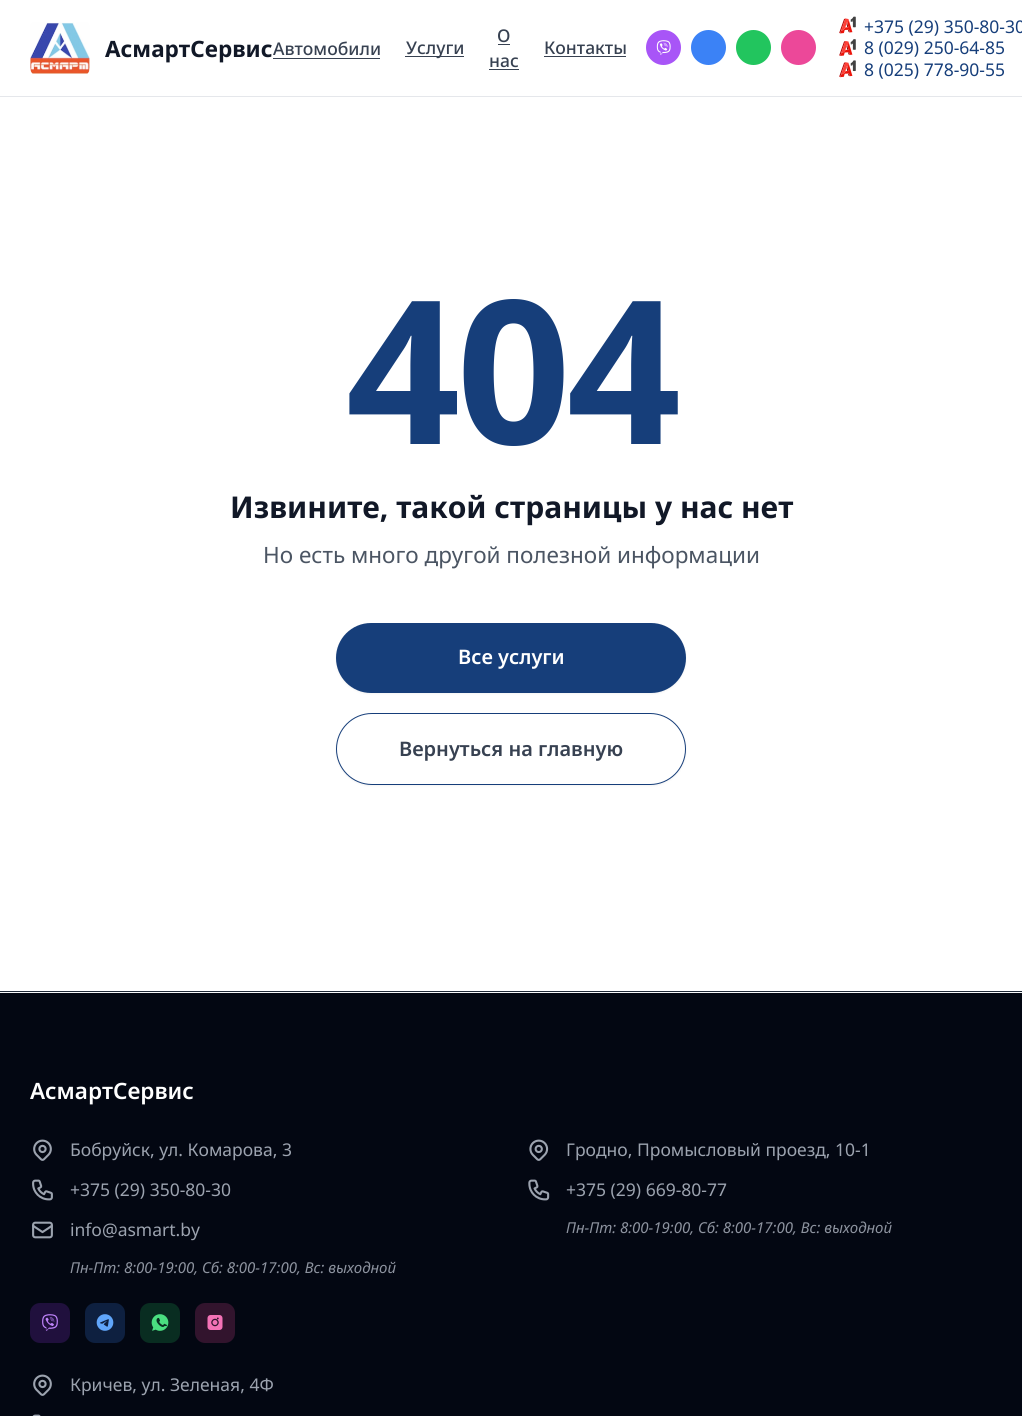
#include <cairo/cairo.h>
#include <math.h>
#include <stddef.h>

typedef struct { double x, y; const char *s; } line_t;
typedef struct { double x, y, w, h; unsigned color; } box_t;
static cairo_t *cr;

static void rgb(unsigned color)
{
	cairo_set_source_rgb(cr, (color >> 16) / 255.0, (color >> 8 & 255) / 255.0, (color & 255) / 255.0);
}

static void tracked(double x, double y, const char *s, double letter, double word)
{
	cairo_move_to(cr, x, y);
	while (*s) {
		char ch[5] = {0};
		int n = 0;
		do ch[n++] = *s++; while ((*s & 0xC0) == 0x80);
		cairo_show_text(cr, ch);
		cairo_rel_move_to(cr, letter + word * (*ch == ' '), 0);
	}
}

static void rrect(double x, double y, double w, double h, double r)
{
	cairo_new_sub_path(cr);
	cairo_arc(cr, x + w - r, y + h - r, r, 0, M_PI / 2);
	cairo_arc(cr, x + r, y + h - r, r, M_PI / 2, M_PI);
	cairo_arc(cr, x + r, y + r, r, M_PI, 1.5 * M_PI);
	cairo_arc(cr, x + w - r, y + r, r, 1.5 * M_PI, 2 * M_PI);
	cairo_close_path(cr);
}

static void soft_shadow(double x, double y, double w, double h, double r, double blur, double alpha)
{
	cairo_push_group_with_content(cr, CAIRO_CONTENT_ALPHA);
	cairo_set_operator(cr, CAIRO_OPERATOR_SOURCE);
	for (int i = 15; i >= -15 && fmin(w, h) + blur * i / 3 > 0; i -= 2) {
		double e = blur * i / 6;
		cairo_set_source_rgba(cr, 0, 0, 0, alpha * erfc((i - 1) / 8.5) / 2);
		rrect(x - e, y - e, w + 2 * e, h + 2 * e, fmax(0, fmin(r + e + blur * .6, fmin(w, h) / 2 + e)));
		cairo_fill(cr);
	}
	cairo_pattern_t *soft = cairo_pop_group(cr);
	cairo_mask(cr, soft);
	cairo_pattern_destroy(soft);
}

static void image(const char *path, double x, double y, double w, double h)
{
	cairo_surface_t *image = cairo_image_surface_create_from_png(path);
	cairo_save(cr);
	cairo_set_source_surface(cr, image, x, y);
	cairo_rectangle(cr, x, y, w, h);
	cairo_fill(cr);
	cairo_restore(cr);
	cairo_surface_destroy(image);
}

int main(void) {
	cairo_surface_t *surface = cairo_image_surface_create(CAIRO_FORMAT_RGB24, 1022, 1416);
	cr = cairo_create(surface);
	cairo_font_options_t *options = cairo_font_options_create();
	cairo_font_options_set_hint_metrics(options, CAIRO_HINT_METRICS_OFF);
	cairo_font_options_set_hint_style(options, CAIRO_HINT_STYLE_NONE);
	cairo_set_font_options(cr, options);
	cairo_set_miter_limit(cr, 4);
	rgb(0xf9fafb);
	cairo_paint(cr);
	rgb(0xffffff);
	cairo_rectangle(cr, 0, 0, 1022, 991);
	cairo_fill(cr);
	rgb(0xe5e7eb);
	cairo_rectangle(cr, 0, 96, 1022, 1);
	cairo_fill(cr);
	image("img/1.png", 30, 22, 60, 52);
	{
		static const box_t items[] = {
			{273, 58, 107, 1, 0x374151},
			{405, 56, 59, 1, 0x374151},
			{498, 44, 12, 1, 0x374151},
			{489, 69, 30, 1, 0x374151},
			{544, 56, 82, 1, 0x374151},
		};
		for (size_t i = 0; i < sizeof items / sizeof *items; i++) {
			rgb(items[i].color);
			cairo_rectangle(cr, items[i].x, items[i].y, items[i].w, items[i].h);
			cairo_fill(cr);
		}
	}
	rgb(0xa855f7);
	cairo_arc(cr, 663.5, 47.5, 17.5, 0, 2 * M_PI);
	cairo_fill(cr);
	image("img/2.png", 656, 40, 15, 15);
	rgb(0x3b82f6);
	cairo_arc(cr, 708.5, 47.5, 17.5, 0, 2 * M_PI);
	cairo_fill(cr);
	rgb(0x22c55e);
	cairo_arc(cr, 753.5, 47.5, 17.5, 0, 2 * M_PI);
	cairo_fill(cr);
	rgb(0xec4899);
	cairo_arc(cr, 798.5, 47.5, 17.5, 0, 2 * M_PI);
	cairo_fill(cr);
	image("img/3.png", 839, 16, 17, 18);
	image("img/4.png", 839, 39, 17, 17);
	image("img/5.png", 839, 60, 17, 18);
	rgb(0x000000);
	soft_shadow(336, 624, 350, 70, 35, 1, 0.05);
	rgb(0x163e7a);
	rrect(336, 623, 350, 70, 35);
	cairo_fill(cr);
	rgb(0x000000);
	soft_shadow(336, 714, 350, 72, 36, 1, 0.05);
	rgb(0xffffff);
	rrect(336.5, 713.5, 349, 71, 35.5);
	cairo_fill_preserve(cr);
	rgb(0x163e7a);
	cairo_set_line_width(cr, 1);
	cairo_stroke(cr);
	rgb(0x030712);
	cairo_rectangle(cr, 0, 993, 1022, 423);
	cairo_fill(cr);
	rgb(0x1f2937);
	cairo_rectangle(cr, 0, 991, 1022, 1);
	cairo_fill(cr);
	image("img/6.png", 33, 1139, 19, 22);
	image("img/7.png", 32, 1179, 21, 22);
	image("img/8.png", 32, 1221, 21, 18);
	rgb(0x20103d);
	rrect(30, 1303, 40, 40, 10);
	cairo_fill(cr);
	image("img/9.png", 42, 1314, 16, 17);
	rgb(0x0e2040);
	rrect(85, 1303, 40, 40, 10);
	cairo_fill(cr);
	image("img/10.png", 96, 1314, 18, 17);
	rgb(0x092d21);
	rrect(140, 1303, 40, 40, 10);
	cairo_fill(cr);
	image("img/11.png", 151, 1314, 18, 17);
	rgb(0x32142d);
	rrect(195, 1303, 40, 40, 10);
	cairo_fill(cr);
	image("img/12.png", 207, 1315, 16, 15);
	image("img/13.png", 529, 1139, 20, 22);
	image("img/14.png", 528, 1179, 22, 22);
	image("img/6.png", 33, 1374, 19, 22);
	image("img/15.png", 32, 1414, 9, 2);
	cairo_select_font_face(cr, "Noto Sans", CAIRO_FONT_SLANT_NORMAL, CAIRO_FONT_WEIGHT_BOLD);
	cairo_set_font_size(cr, 22.5);
	rgb(0x111827);
	cairo_move_to(cr, 105, 57);
	cairo_show_text(cr, "АсмартСервис");
	cairo_select_font_face(cr, "Noto Sans Medium", CAIRO_FONT_SLANT_NORMAL, CAIRO_FONT_WEIGHT_NORMAL);
	cairo_set_font_size(cr, 17.5);
	rgb(0x374151);
	{
		static const line_t items[] = {
			{273, 55, "Автомобили"},
			{406, 54, "Услуги"},
			{497, 42, "О"},
			{489, 67, "нас"},
			{544, 54, "Контакты"},
		};
		for (size_t i = 0; i < sizeof items / sizeof *items; i++) {
			cairo_move_to(cr, items[i].x, items[i].y);
			cairo_show_text(cr, items[i].s);
		}
	}
	cairo_select_font_face(cr, "Noto Sans", CAIRO_FONT_SLANT_NORMAL, CAIRO_FONT_WEIGHT_NORMAL);
	rgb(0x163e7a);
	{
		static const line_t items[] = {
			{864, 33, "+375 (29) 350-80-30"},
			{864, 54, "8 (029) 250-64-85"},
			{864, 76, "8 (025) 778-90-55"},
		};
		for (size_t i = 0; i < sizeof items / sizeof *items; i++) {
			cairo_move_to(cr, items[i].x, items[i].y);
			cairo_show_text(cr, items[i].s);
		}
	}
	cairo_select_font_face(cr, "Noto Sans", CAIRO_FONT_SLANT_NORMAL, CAIRO_FONT_WEIGHT_BOLD);
	cairo_set_font_size(cr, 200);
	tracked(346, 444, "404", -4, 0);
	cairo_set_font_size(cr, 30);
	rgb(0x111827);
	cairo_move_to(cr, 230, 518);
	cairo_show_text(cr, "Извините, такой страницы у нас нет");
	cairo_select_font_face(cr, "Noto Sans", CAIRO_FONT_SLANT_NORMAL, CAIRO_FONT_WEIGHT_NORMAL);
	cairo_set_font_size(cr, 22.5);
	rgb(0x4b5563);
	cairo_move_to(cr, 263, 563);
	cairo_show_text(cr, "Но есть много другой полезной информации");
	cairo_select_font_face(cr, "Noto Sans SemiBold", CAIRO_FONT_SLANT_NORMAL, CAIRO_FONT_WEIGHT_NORMAL);
	cairo_set_font_size(cr, 20);
	rgb(0xffffff);
	cairo_move_to(cr, 458, 664);
	cairo_show_text(cr, "Все услуги");
	rgb(0x374151);
	cairo_move_to(cr, 399, 756);
	cairo_show_text(cr, "Вернуться на главную");
	cairo_set_font_size(cr, 22.5);
	rgb(0xffffff);
	cairo_move_to(cr, 30, 1099);
	cairo_show_text(cr, "АсмартСервис");
	cairo_select_font_face(cr, "Noto Sans", CAIRO_FONT_SLANT_NORMAL, CAIRO_FONT_WEIGHT_NORMAL);
	cairo_set_font_size(cr, 17.5);
	rgb(0x9ca3af);
	{
		static const line_t items[] = {
			{70, 1156, "Бобруйск, ул. Комарова, 3"},
			{70, 1196, "+375 (29) 350-80-30"},
			{70, 1236, "info@asmart.by"},
		};
		for (size_t i = 0; i < sizeof items / sizeof *items; i++) {
			cairo_move_to(cr, items[i].x, items[i].y);
			cairo_show_text(cr, items[i].s);
		}
	}
	cairo_select_font_face(cr, "Noto Sans", CAIRO_FONT_SLANT_ITALIC, CAIRO_FONT_WEIGHT_NORMAL);
	cairo_set_font_size(cr, 15);
	rgb(0x8d939f);
	cairo_move_to(cr, 70, 1273);
	cairo_show_text(cr, "Пн-Пт: 8:00-19:00, Сб: 8:00-17:00, Вс: выходной");
	cairo_select_font_face(cr, "Noto Sans", CAIRO_FONT_SLANT_NORMAL, CAIRO_FONT_WEIGHT_NORMAL);
	cairo_set_font_size(cr, 17.5);
	rgb(0x9ca3af);
	cairo_move_to(cr, 566, 1156);
	cairo_show_text(cr, "Гродно, Промысловый проезд, 10-1");
	cairo_move_to(cr, 566, 1196);
	cairo_show_text(cr, "+375 (29) 669-80-77");
	cairo_select_font_face(cr, "Noto Sans", CAIRO_FONT_SLANT_ITALIC, CAIRO_FONT_WEIGHT_NORMAL);
	cairo_set_font_size(cr, 15);
	rgb(0x8d939f);
	cairo_move_to(cr, 566, 1233);
	cairo_show_text(cr, "Пн-Пт: 8:00-19:00, Сб: 8:00-17:00, Вс: выходной");
	cairo_select_font_face(cr, "Noto Sans", CAIRO_FONT_SLANT_NORMAL, CAIRO_FONT_WEIGHT_NORMAL);
	cairo_set_font_size(cr, 17.5);
	rgb(0x9ca3af);
	cairo_move_to(cr, 70, 1391);
	cairo_show_text(cr, "Кричев, ул. Зеленая, 4Ф");
	cairo_surface_write_to_png(surface, "page.png");
	cairo_font_options_destroy(options);
	cairo_destroy(cr);
	cairo_surface_destroy(surface);
	return 0;
}
